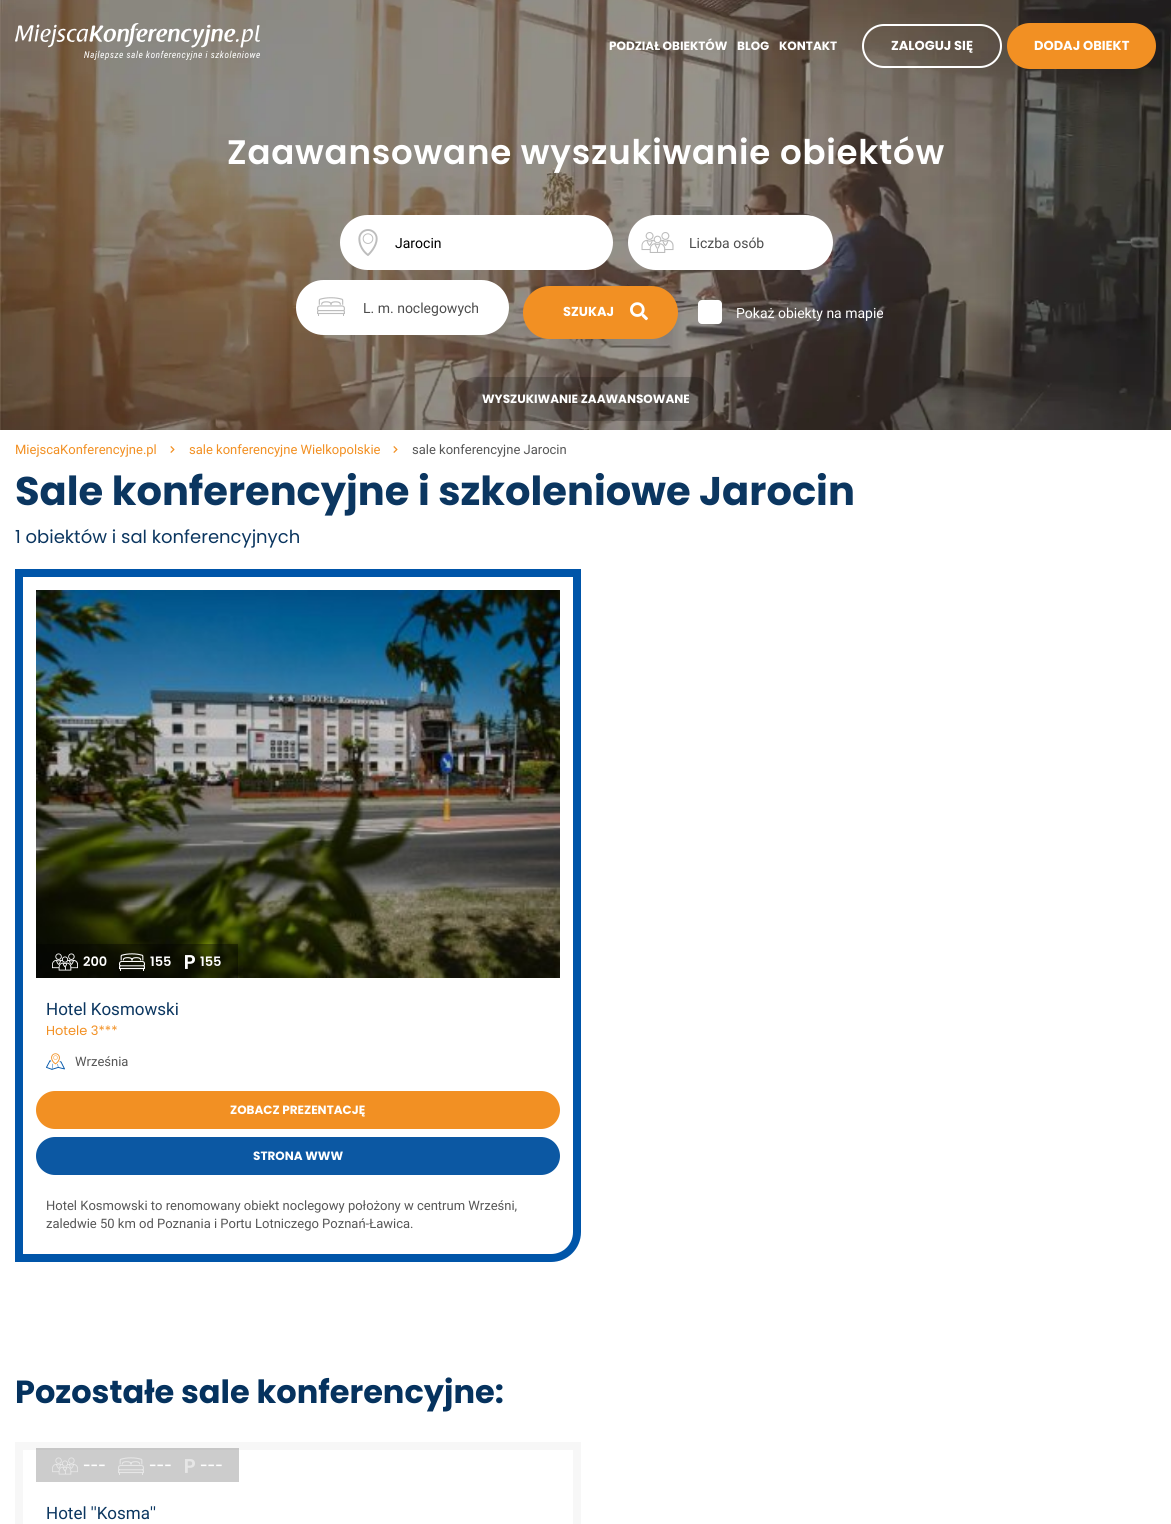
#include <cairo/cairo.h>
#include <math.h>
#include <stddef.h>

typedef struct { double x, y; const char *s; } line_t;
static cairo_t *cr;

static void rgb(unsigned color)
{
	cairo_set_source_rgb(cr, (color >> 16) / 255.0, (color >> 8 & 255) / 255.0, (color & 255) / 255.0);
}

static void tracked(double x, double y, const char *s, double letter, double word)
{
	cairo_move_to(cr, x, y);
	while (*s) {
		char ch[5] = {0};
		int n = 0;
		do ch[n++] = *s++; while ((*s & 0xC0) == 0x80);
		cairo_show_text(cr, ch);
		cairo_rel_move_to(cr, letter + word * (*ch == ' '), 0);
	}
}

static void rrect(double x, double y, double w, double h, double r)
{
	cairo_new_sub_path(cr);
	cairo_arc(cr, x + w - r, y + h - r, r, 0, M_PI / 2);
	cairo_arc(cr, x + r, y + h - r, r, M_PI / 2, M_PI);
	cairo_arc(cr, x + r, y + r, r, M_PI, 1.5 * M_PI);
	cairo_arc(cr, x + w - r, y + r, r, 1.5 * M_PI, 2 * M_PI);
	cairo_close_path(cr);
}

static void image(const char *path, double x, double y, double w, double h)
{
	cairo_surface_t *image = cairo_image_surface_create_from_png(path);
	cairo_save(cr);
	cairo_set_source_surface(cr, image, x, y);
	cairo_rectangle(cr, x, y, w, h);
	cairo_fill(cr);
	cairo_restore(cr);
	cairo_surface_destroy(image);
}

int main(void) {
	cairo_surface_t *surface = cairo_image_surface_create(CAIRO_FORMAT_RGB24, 1171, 1524);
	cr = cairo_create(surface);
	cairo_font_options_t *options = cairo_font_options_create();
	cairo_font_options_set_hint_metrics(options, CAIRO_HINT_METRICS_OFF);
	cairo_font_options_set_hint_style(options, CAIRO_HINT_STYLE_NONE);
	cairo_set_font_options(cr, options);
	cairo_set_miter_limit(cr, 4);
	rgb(0xffffff);
	cairo_paint(cr);
	image("img/2.png", 0, 0, 1171, 430);
	image("img/1.png", 15, 23, 245, 37);
	rrect(863, 25, 138, 42, 21);
	rgb(0xffffff);
	cairo_stroke(cr);
	rgb(0xf29023);
	rrect(1007, 23, 149, 46, 23);
	cairo_fill(cr);
	rgb(0xffffff);
	rrect(340, 215, 273, 55, 27.5);
	cairo_fill(cr);
	image("img/3.png", 358, 229, 20, 27);
	rrect(628, 215, 205, 55, 27.5);
	cairo_fill(cr);
	image("img/4.png", 641, 232, 33, 21);
	rrect(296, 280, 213, 55, 27.5);
	cairo_fill(cr);
	image("img/5.png", 317, 297, 28, 19);
	rgb(0xf29023);
	rrect(523, 286, 155, 53, 26.5);
	cairo_fill(cr);
	image("img/6.png", 630, 302, 18, 19);
	rgb(0xffffff);
	rrect(698, 300, 24, 24, 4);
	cairo_fill(cr);
	cairo_set_source_rgba(cr, 0, 0, 0, 0.2);
	rrect(455, 377, 261, 44, 22);
	cairo_fill(cr);
	image("img/7.png", 170, 446, 5, 7);
	image("img/7.png", 393, 446, 5, 7);
	cairo_new_path(cr);
	cairo_move_to(cr, 19, 573);
	cairo_line_to(cr, 577, 573);
	cairo_line_to(cr, 577, 1232);
	cairo_curve_to(cr, 577, 1246.5, 565.5, 1258, 551, 1258);
	cairo_line_to(cr, 19, 1258);
	cairo_close_path(cr);
	rgb(0x0055a9);
	cairo_set_line_width(cr, 8);
	cairo_stroke(cr);
	image("img/8.png", 36, 590, 524, 388);
	cairo_set_source_rgba(cr, 0, 0, 0, 0.4);
	cairo_rectangle(cr, 36, 944, 202, 34);
	cairo_fill(cr);
	image("img/9.png", 52, 953, 26, 18);
	image("img/10.png", 119, 953, 26, 18);
	image("img/11.png", 185, 955, 10, 14);
	image("img/12.png", 46, 1053, 19, 17);
	rgb(0xf29023);
	rrect(36, 1091, 524, 38, 19);
	cairo_fill(cr);
	rgb(0x0c58a3);
	rrect(36, 1137, 524, 38, 19);
	cairo_fill(cr);
	cairo_rectangle(cr, 19, 1446, 558, 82);
	rgb(0xf7f7f7);
	cairo_stroke(cr);
	cairo_set_source_rgba(cr, 0, 0, 0, 0.2);
	cairo_rectangle(cr, 36, 1448, 203, 34);
	cairo_fill(cr);
	image("img/13.png", 52, 1457, 26, 18);
	image("img/14.png", 118, 1457, 26, 18);
	image("img/15.png", 185, 1459, 10, 14);
	cairo_select_font_face(cr, "Poppins", CAIRO_FONT_SLANT_NORMAL, CAIRO_FONT_WEIGHT_BOLD);
	cairo_set_font_size(cr, 12);
	rgb(0xffffff);
	{
		static const line_t items[] = {
			{609, 50, "PODZIAŁ OBIEKTÓW"},
			{737, 50, "BLOG"},
			{779, 50, "KONTAKT"},
		};
		for (size_t i = 0; i < sizeof items / sizeof *items; i++) {
			cairo_move_to(cr, items[i].x, items[i].y);
			cairo_show_text(cr, items[i].s);
		}
	}
	cairo_set_font_size(cr, 13);
	cairo_move_to(cr, 891, 50);
	cairo_show_text(cr, "ZALOGUJ SIĘ");
	cairo_move_to(cr, 1034, 50);
	cairo_show_text(cr, "DODAJ OBIEKT");
	cairo_select_font_face(cr, "Poppins SemiBold", CAIRO_FONT_SLANT_NORMAL, CAIRO_FONT_WEIGHT_NORMAL);
	cairo_set_font_size(cr, 34);
	tracked(227, 164, "Zaawansowane wyszukiwanie obiektów", 0.8, 0);
	cairo_select_font_face(cr, "Roboto", CAIRO_FONT_SLANT_NORMAL, CAIRO_FONT_WEIGHT_NORMAL);
	cairo_set_font_size(cr, 14);
	rgb(0x000000);
	cairo_move_to(cr, 395, 248);
	cairo_show_text(cr, "Jarocin");
	rgb(0x4d4d4d);
	cairo_move_to(cr, 689, 248);
	cairo_show_text(cr, "Liczba osób");
	cairo_move_to(cr, 363, 313);
	cairo_show_text(cr, "L. m. noclegowych");
	cairo_select_font_face(cr, "Poppins", CAIRO_FONT_SLANT_NORMAL, CAIRO_FONT_WEIGHT_BOLD);
	cairo_set_font_size(cr, 13);
	rgb(0xffffff);
	cairo_move_to(cr, 563, 316);
	cairo_show_text(cr, "SZUKAJ");
	cairo_select_font_face(cr, "Roboto", CAIRO_FONT_SLANT_NORMAL, CAIRO_FONT_WEIGHT_NORMAL);
	cairo_set_font_size(cr, 14);
	cairo_move_to(cr, 736, 318);
	cairo_show_text(cr, "Pokaż obiekty na mapie");
	cairo_select_font_face(cr, "Poppins", CAIRO_FONT_SLANT_NORMAL, CAIRO_FONT_WEIGHT_BOLD);
	cairo_set_font_size(cr, 12);
	cairo_move_to(cr, 482, 403);
	cairo_show_text(cr, "WYSZUKIWANIE ZAAWANSOWANE");
	cairo_select_font_face(cr, "Roboto", CAIRO_FONT_SLANT_NORMAL, CAIRO_FONT_WEIGHT_NORMAL);
	cairo_set_font_size(cr, 13);
	rgb(0xf29023);
	cairo_move_to(cr, 15, 454);
	cairo_show_text(cr, "MiejscaKonferencyjne.pl");
	cairo_move_to(cr, 189, 454);
	cairo_show_text(cr, "sale konferencyjne Wielkopolskie");
	rgb(0x565656);
	cairo_move_to(cr, 412, 454);
	cairo_show_text(cr, "sale konferencyjne Jarocin");
	cairo_select_font_face(cr, "Poppins", CAIRO_FONT_SLANT_NORMAL, CAIRO_FONT_WEIGHT_BOLD);
	cairo_set_font_size(cr, 40);
	rgb(0x0b3660);
	cairo_move_to(cr, 15, 505);
	cairo_show_text(cr, "Sale konferencyjne i szkoleniowe Jarocin");
	cairo_select_font_face(cr, "Poppins", CAIRO_FONT_SLANT_NORMAL, CAIRO_FONT_WEIGHT_NORMAL);
	cairo_set_font_size(cr, 18);
	cairo_move_to(cr, 15, 543);
	cairo_show_text(cr, "1 obiektów i sal konferencyjnych");
	cairo_select_font_face(cr, "Poppins SemiBold", CAIRO_FONT_SLANT_NORMAL, CAIRO_FONT_WEIGHT_NORMAL);
	cairo_set_font_size(cr, 13);
	rgb(0xffffff);
	{
		static const line_t items[] = {
			{83, 966, "200"},
			{150, 966, "155"},
			{200, 966, "155"},
		};
		for (size_t i = 0; i < sizeof items / sizeof *items; i++) {
			cairo_move_to(cr, items[i].x, items[i].y);
			cairo_show_text(cr, items[i].s);
		}
	}
	cairo_select_font_face(cr, "Roboto", CAIRO_FONT_SLANT_NORMAL, CAIRO_FONT_WEIGHT_NORMAL);
	cairo_set_font_size(cr, 17);
	rgb(0x0b3660);
	cairo_move_to(cr, 46, 1015);
	cairo_show_text(cr, "Hotel Kosmowski");
	cairo_select_font_face(cr, "Poppins", CAIRO_FONT_SLANT_NORMAL, CAIRO_FONT_WEIGHT_NORMAL);
	cairo_set_font_size(cr, 13);
	rgb(0xf29023);
	cairo_move_to(cr, 46, 1035);
	cairo_show_text(cr, "Hotele 3***");
	cairo_select_font_face(cr, "Roboto", CAIRO_FONT_SLANT_NORMAL, CAIRO_FONT_WEIGHT_NORMAL);
	rgb(0x565656);
	cairo_move_to(cr, 75, 1066);
	cairo_show_text(cr, "Września");
	cairo_select_font_face(cr, "Poppins", CAIRO_FONT_SLANT_NORMAL, CAIRO_FONT_WEIGHT_BOLD);
	cairo_set_font_size(cr, 12);
	rgb(0xffffff);
	cairo_move_to(cr, 230, 1114);
	cairo_show_text(cr, "ZOBACZ PREZENTACJĘ");
	cairo_move_to(cr, 253, 1160);
	cairo_show_text(cr, "STRONA WWW");
	cairo_select_font_face(cr, "Roboto", CAIRO_FONT_SLANT_NORMAL, CAIRO_FONT_WEIGHT_NORMAL);
	cairo_set_font_size(cr, 13);
	rgb(0x565656);
	cairo_move_to(cr, 46, 1210);
	cairo_show_text(cr, "Hotel Kosmowski to renomowany obiekt noclegowy położony w centrum Wrześni,");
	cairo_move_to(cr, 46, 1228);
	cairo_show_text(cr, "zaledwie 50 km od Poznania i Portu Lotniczego Poznań-Ławica.");
	cairo_select_font_face(cr, "Poppins", CAIRO_FONT_SLANT_NORMAL, CAIRO_FONT_WEIGHT_BOLD);
	cairo_set_font_size(cr, 32);
	rgb(0x05325e);
	cairo_move_to(cr, 15, 1403);
	cairo_show_text(cr, "Pozostałe sale konferencyjne:");
	cairo_select_font_face(cr, "Poppins SemiBold", CAIRO_FONT_SLANT_NORMAL, CAIRO_FONT_WEIGHT_NORMAL);
	cairo_set_font_size(cr, 13);
	rgb(0xffffff);
	{
		static const line_t items[] = {
			{83, 1470, "---"},
			{149, 1470, "---"},
			{200, 1470, "---"},
		};
		for (size_t i = 0; i < sizeof items / sizeof *items; i++) {
			cairo_move_to(cr, items[i].x, items[i].y);
			cairo_show_text(cr, items[i].s);
		}
	}
	cairo_select_font_face(cr, "Roboto", CAIRO_FONT_SLANT_NORMAL, CAIRO_FONT_WEIGHT_NORMAL);
	cairo_set_font_size(cr, 17);
	rgb(0x0b3660);
	cairo_move_to(cr, 46, 1519);
	cairo_show_text(cr, "Hotel ''Kosma''");
	cairo_surface_write_to_png(surface, "page.png");
	cairo_font_options_destroy(options);
	cairo_destroy(cr);
	cairo_surface_destroy(surface);
	return 0;
}
